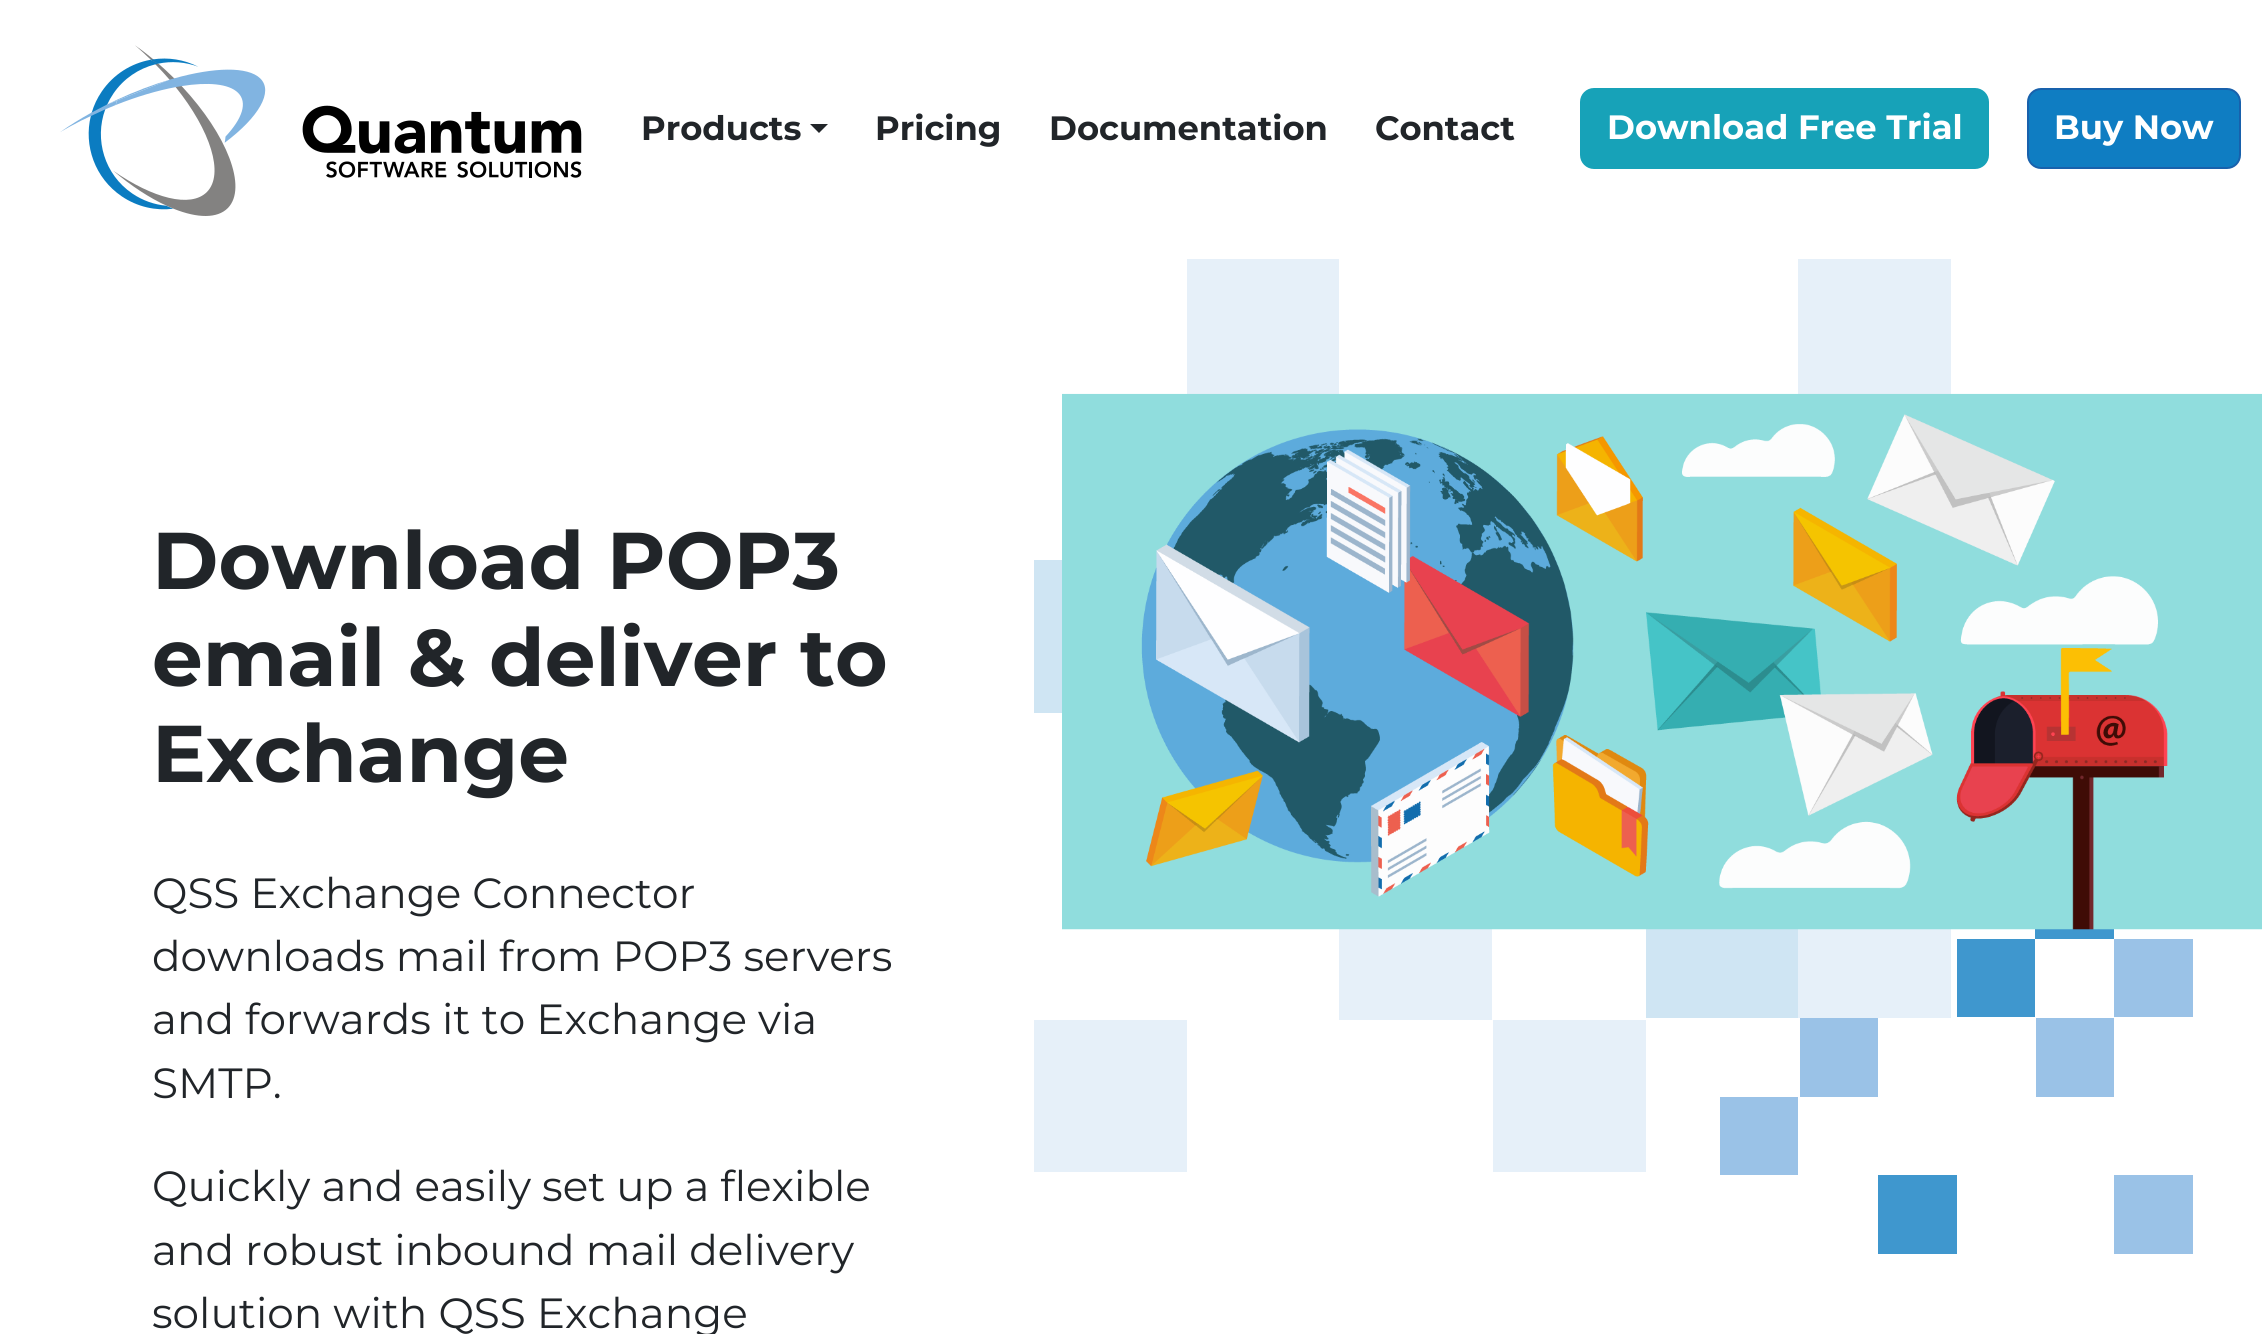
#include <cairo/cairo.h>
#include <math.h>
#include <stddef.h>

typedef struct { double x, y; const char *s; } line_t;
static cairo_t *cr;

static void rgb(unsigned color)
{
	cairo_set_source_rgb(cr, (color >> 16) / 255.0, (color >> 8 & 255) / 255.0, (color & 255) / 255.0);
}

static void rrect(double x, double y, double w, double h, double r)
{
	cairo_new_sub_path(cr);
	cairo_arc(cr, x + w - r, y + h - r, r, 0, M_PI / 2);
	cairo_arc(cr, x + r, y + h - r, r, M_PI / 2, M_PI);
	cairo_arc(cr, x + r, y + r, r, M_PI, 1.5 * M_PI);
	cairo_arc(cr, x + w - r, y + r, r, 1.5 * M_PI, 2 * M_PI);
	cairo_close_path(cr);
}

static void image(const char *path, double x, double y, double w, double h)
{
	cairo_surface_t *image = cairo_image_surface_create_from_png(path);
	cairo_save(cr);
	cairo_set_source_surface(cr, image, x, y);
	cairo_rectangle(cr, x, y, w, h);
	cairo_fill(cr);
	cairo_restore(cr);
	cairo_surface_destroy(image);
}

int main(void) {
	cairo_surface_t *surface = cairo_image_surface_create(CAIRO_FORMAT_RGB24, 2262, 1334);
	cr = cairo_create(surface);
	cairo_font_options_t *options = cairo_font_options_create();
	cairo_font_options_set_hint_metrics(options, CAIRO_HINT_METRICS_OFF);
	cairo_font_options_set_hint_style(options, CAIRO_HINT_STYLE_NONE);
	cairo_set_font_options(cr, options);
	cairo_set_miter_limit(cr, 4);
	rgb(0xffffff);
	cairo_paint(cr);
	image("img/1.png", 60, 45, 522, 171);
	rgb(0x212529);
	cairo_new_path(cr);
	cairo_move_to(cr, 810, 124);
	cairo_line_to(cr, 828, 124);
	cairo_line_to(cr, 819, 133);
	cairo_close_path(cr);
	cairo_fill(cr);
	rgb(0x17a2b8);
	rrect(1581, 89, 407, 79, 13);
	cairo_fill_preserve(cr);
	cairo_stroke(cr);
	rgb(0x0f7dc2);
	rrect(2028, 89, 212, 79, 13);
	cairo_fill_preserve(cr);
	rgb(0x1861ac);
	cairo_stroke(cr);
	image("img/2.png", 1034, 259, 1159, 995);
	image("img/3.png", 1062, 393, 1200, 537);
	cairo_select_font_face(cr, "Montserrat", CAIRO_FONT_SLANT_NORMAL, CAIRO_FONT_WEIGHT_BOLD);
	cairo_set_font_size(cr, 33.75);
	rgb(0x212529);
	{
		static const line_t items[] = {
			{641, 140, "Products"},
			{875, 140, "Pricing"},
			{1049, 140, "Documentation"},
			{1375, 140, "Contact"},
		};
		for (size_t i = 0; i < sizeof items / sizeof *items; i++) {
			cairo_move_to(cr, items[i].x, items[i].y);
			cairo_show_text(cr, items[i].s);
		}
	}
	rgb(0xffffff);
	cairo_move_to(cr, 1607, 139);
	cairo_show_text(cr, "Download Free Trial");
	cairo_move_to(cr, 2054, 139);
	cairo_show_text(cr, "Buy Now");
	cairo_set_font_size(cr, 80.4);
	rgb(0x212529);
	{
		static const line_t items[] = {
			{152, 589, "Download POP3"},
			{152, 686, "email & deliver to"},
			{152, 782, "Exchange"},
		};
		for (size_t i = 0; i < sizeof items / sizeof *items; i++) {
			cairo_move_to(cr, items[i].x, items[i].y);
			cairo_show_text(cr, items[i].s);
		}
	}
	cairo_select_font_face(cr, "Montserrat", CAIRO_FONT_SLANT_NORMAL, CAIRO_FONT_WEIGHT_NORMAL);
	cairo_set_font_size(cr, 42.2);
	{
		static const line_t items[] = {
			{152, 908, "QSS Exchange Connector"},
			{152, 971, "downloads mail from POP3 servers"},
			{152, 1034, "and forwards it to Exchange via"},
			{152, 1098, "SMTP."},
			{152, 1201, "Quickly and easily set up a flexible"},
			{152, 1265, "and robust inbound mail delivery"},
			{152, 1328, "solution with QSS Exchange"},
		};
		for (size_t i = 0; i < sizeof items / sizeof *items; i++) {
			cairo_move_to(cr, items[i].x, items[i].y);
			cairo_show_text(cr, items[i].s);
		}
	}
	cairo_surface_write_to_png(surface, "page.png");
	cairo_font_options_destroy(options);
	cairo_destroy(cr);
	cairo_surface_destroy(surface);
	return 0;
}
